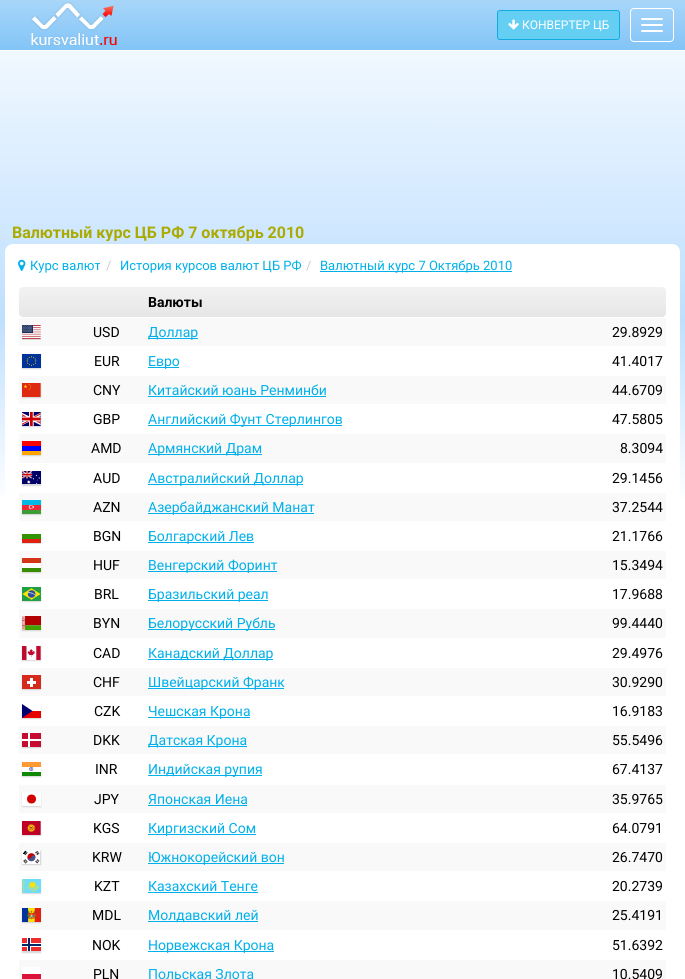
#include <cairo/cairo.h>
#include <math.h>
#include <stddef.h>

typedef struct { double x, y, w, h; unsigned color; } box_t;
static cairo_t *cr;

static void rgb(unsigned color)
{
	cairo_set_source_rgb(cr, (color >> 16) / 255.0, (color >> 8 & 255) / 255.0, (color & 255) / 255.0);
}

static void rrect(double x, double y, double w, double h, double r)
{
	cairo_new_sub_path(cr);
	cairo_arc(cr, x + w - r, y + h - r, r, 0, M_PI / 2);
	cairo_arc(cr, x + r, y + h - r, r, M_PI / 2, M_PI);
	cairo_arc(cr, x + r, y + r, r, M_PI, 1.5 * M_PI);
	cairo_arc(cr, x + w - r, y + r, r, 1.5 * M_PI, 2 * M_PI);
	cairo_close_path(cr);
}

static void soft_shadow(double x, double y, double w, double h, double r, double blur, double alpha)
{
	cairo_push_group_with_content(cr, CAIRO_CONTENT_ALPHA);
	cairo_set_operator(cr, CAIRO_OPERATOR_SOURCE);
	for (int i = 15; i >= -15 && fmin(w, h) + blur * i / 3 > 0; i -= 2) {
		double e = blur * i / 6;
		cairo_set_source_rgba(cr, 0, 0, 0, alpha * erfc((i - 1) / 8.5) / 2);
		rrect(x - e, y - e, w + 2 * e, h + 2 * e, fmax(0, fmin(r + e + blur * .6, fmin(w, h) / 2 + e)));
		cairo_fill(cr);
	}
	cairo_pattern_t *soft = cairo_pop_group(cr);
	cairo_mask(cr, soft);
	cairo_pattern_destroy(soft);
}

static void image(const char *path, double x, double y, double w, double h)
{
	cairo_surface_t *image = cairo_image_surface_create_from_png(path);
	cairo_save(cr);
	cairo_set_source_surface(cr, image, x, y);
	cairo_rectangle(cr, x, y, w, h);
	cairo_fill(cr);
	cairo_restore(cr);
	cairo_surface_destroy(image);
}

int main(void) {
	cairo_surface_t *surface = cairo_image_surface_create(CAIRO_FORMAT_RGB24, 685, 979);
	cr = cairo_create(surface);
	cairo_font_options_t *options = cairo_font_options_create();
	cairo_font_options_set_hint_metrics(options, CAIRO_HINT_METRICS_OFF);
	cairo_font_options_set_hint_style(options, CAIRO_HINT_STYLE_NONE);
	cairo_set_font_options(cr, options);
	cairo_set_miter_limit(cr, 4);
	cairo_pattern_t *gradient;
	rgb(0xffffff);
	cairo_paint(cr);
	gradient = cairo_pattern_create_linear(342, 0, 343, 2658);
	cairo_pattern_add_color_stop_rgba(gradient, 0, 0.98, 0.992, 1, 1);
	cairo_pattern_add_color_stop_rgba(gradient, 0.12, 0.749, 0.875, 1, 1);
	cairo_pattern_add_color_stop_rgba(gradient, 0.19, 1, 1, 1, 1);
	cairo_pattern_add_color_stop_rgba(gradient, 1, 1, 1, 1, 1);
	cairo_set_source(cr, gradient);
	cairo_pattern_destroy(gradient);
	cairo_rectangle(cr, 0, 51, 685, 447);
	cairo_fill(cr);
	gradient = cairo_pattern_create_linear(343, 0, 343, 50);
	cairo_pattern_add_color_stop_rgba(gradient, 0, 0.659, 0.839, 0.976, 1);
	cairo_pattern_add_color_stop_rgba(gradient, 1, 0.51, 0.769, 0.969, 1);
	cairo_set_source(cr, gradient);
	cairo_pattern_destroy(gradient);
	cairo_rectangle(cr, 0, 0, 685, 50);
	cairo_fill(cr);
	image("img/1.png", 31, 2, 86, 44);
	rgb(0x64cff3);
	rrect(497.5, 10.5, 122, 29, 2.5);
	cairo_fill_preserve(cr);
	rgb(0x11acdf);
	cairo_set_line_width(cr, 1);
	cairo_stroke(cr);
	image("img/2.png", 508, 19, 11, 11);
	rrect(630.5, 8.5, 43, 33, 3.5);
	rgb(0xffffff);
	cairo_stroke(cr);
	rrect(641, 18, 22, 2, 1);
	cairo_fill(cr);
	rrect(641, 24, 22, 2, 1);
	cairo_fill(cr);
	rrect(641, 30, 22, 2, 1);
	cairo_fill(cr);
	cairo_new_path(cr);
	cairo_move_to(cr, 13, 244);
	cairo_line_to(cr, 672, 244);
	cairo_curve_to(cr, 676.5, 244, 680, 247.5, 680, 252);
	cairo_line_to(cr, 680, 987);
	cairo_line_to(cr, 5, 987);
	cairo_line_to(cr, 5, 252);
	cairo_curve_to(cr, 5, 247.5, 8.5, 244, 13, 244);
	cairo_close_path(cr);
	cairo_fill(cr);
	image("img/3.png", 18, 259, 8, 12);
	rgb(0x00b0ea);
	cairo_rectangle(cr, 320, 271, 192, 1);
	cairo_fill(cr);
	gradient = cairo_pattern_create_linear(343, 287, 343, 317);
	cairo_pattern_add_color_stop_rgba(gradient, 0, 0.949, 0.949, 0.949, 1);
	cairo_pattern_add_color_stop_rgba(gradient, 1, 0.902, 0.902, 0.902, 1);
	cairo_set_source(cr, gradient);
	cairo_pattern_destroy(gradient);
	rrect(19, 287, 647, 30, 4);
	cairo_fill(cr);
	rgb(0xf9f9f9);
	cairo_rectangle(cr, 19, 318, 647, 28);
	cairo_fill(cr);
	cairo_save(cr);
	cairo_rectangle(cr, 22, 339, 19, 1);
	cairo_clip(cr);
	rgb(0x000000);
	soft_shadow(22, 326, 19, 14, 0, 0.5, 0.15);
	cairo_restore(cr);
	image("img/4.png", 22, 325, 19, 14);
	rgb(0x00b0ea);
	cairo_rectangle(cr, 148, 338, 50, 1);
	cairo_fill(cr);
	rgb(0x000000);
	soft_shadow(22, 355, 19, 14, 0, 0.5, 0.15);
	image("img/5.png", 22, 354, 19, 14);
	rgb(0x00b0ea);
	cairo_rectangle(cr, 148, 367, 31, 1);
	cairo_fill(cr);
	rgb(0xf9f9f9);
	cairo_rectangle(cr, 19, 376, 647, 28);
	cairo_fill(cr);
	rgb(0x000000);
	soft_shadow(22, 384, 19, 14, 0, 0.5, 0.15);
	image("img/6.png", 22, 383, 19, 14);
	rgb(0x00b0ea);
	cairo_rectangle(cr, 148, 396, 178, 1);
	cairo_fill(cr);
	rgb(0x000000);
	soft_shadow(22, 413, 19, 14, 0, 0.5, 0.15);
	image("img/7.png", 22, 412, 19, 14);
	rgb(0x00b0ea);
	cairo_rectangle(cr, 148, 425, 194, 1);
	cairo_fill(cr);
	rgb(0xf9f9f9);
	cairo_rectangle(cr, 19, 434, 647, 29);
	cairo_fill(cr);
	rgb(0x000000);
	soft_shadow(22, 442, 19, 14, 0, 0.5, 0.15);
	{
		static const box_t items[] = {
			{22, 441, 19, 5, 0xff0000},
			{22, 446, 19, 5, 0x0000ff},
			{22, 451, 19, 4, 0xffa500},
			{148, 454, 114, 1, 0x00b0ea},
		};
		for (size_t i = 0; i < sizeof items / sizeof *items; i++) {
			rgb(items[i].color);
			cairo_rectangle(cr, items[i].x, items[i].y, items[i].w, items[i].h);
			cairo_fill(cr);
		}
	}
	rgb(0x000000);
	soft_shadow(22, 472, 19, 14, 0, 0.5, 0.15);
	image("img/8.png", 22, 471, 19, 13);
	rgb(0x00b0ea);
	cairo_rectangle(cr, 148, 484, 155, 1);
	cairo_fill(cr);
	rgb(0xf9f9f9);
	cairo_rectangle(cr, 19, 493, 647, 28);
	cairo_fill(cr);
	rgb(0x000000);
	soft_shadow(22, 501, 19, 14, 0, 0.5, 0.15);
	image("img/9.png", 22, 500, 19, 14);
	rgb(0x00b0ea);
	cairo_rectangle(cr, 148, 513, 166, 1);
	cairo_fill(cr);
	cairo_save(cr);
	cairo_rectangle(cr, 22, 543, 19, 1);
	cairo_clip(cr);
	rgb(0x000000);
	soft_shadow(22, 530, 19, 14, 0, 0.5, 0.15);
	cairo_restore(cr);
	{
		static const box_t items[] = {
			{22, 539, 19, 4, 0xde2110},
			{22, 534, 19, 5, 0x319400},
			{148, 542, 106, 1, 0x00b0ea},
			{19, 551, 647, 28, 0xf9f9f9},
		};
		for (size_t i = 0; i < sizeof items / sizeof *items; i++) {
			rgb(items[i].color);
			cairo_rectangle(cr, items[i].x, items[i].y, items[i].w, items[i].h);
			cairo_fill(cr);
		}
	}
	rgb(0x000000);
	soft_shadow(22, 559, 19, 14, 0, 0.5, 0.15);
	{
		static const box_t items[] = {
			{22, 563, 19, 5, 0xffffff},
			{22, 568, 19, 4, 0x388d00},
			{22, 558, 19, 5, 0xd43516},
			{148, 571, 129, 1, 0x00b0ea},
		};
		for (size_t i = 0; i < sizeof items / sizeof *items; i++) {
			rgb(items[i].color);
			cairo_rectangle(cr, items[i].x, items[i].y, items[i].w, items[i].h);
			cairo_fill(cr);
		}
	}
	rgb(0x000000);
	soft_shadow(22, 588, 19, 14, 0, 0.5, 0.15);
	image("img/10.png", 22, 587, 19, 14);
	rgb(0x00b0ea);
	cairo_rectangle(cr, 148, 600, 120, 1);
	cairo_fill(cr);
	rgb(0xf9f9f9);
	cairo_rectangle(cr, 19, 609, 647, 29);
	cairo_fill(cr);
	rgb(0x000000);
	soft_shadow(22, 617, 19, 14, 0, 0.5, 0.15);
	image("img/11.png", 22, 616, 19, 14);
	rgb(0x00b0ea);
	cairo_rectangle(cr, 148, 629, 127, 1);
	cairo_fill(cr);
	rgb(0x000000);
	soft_shadow(22, 647, 19, 14, 0, 0.5, 0.15);
	image("img/12.png", 22, 646, 19, 14);
	rgb(0x00b0ea);
	cairo_rectangle(cr, 148, 659, 125, 1);
	cairo_fill(cr);
	rgb(0xf9f9f9);
	cairo_rectangle(cr, 19, 668, 647, 28);
	cairo_fill(cr);
	rgb(0x000000);
	soft_shadow(22, 676, 19, 14, 0, 0.5, 0.15);
	{
		static const box_t items[] = {
			{22, 675, 19, 14, 0xd52b1e},
			{27, 681, 9, 3, 0xffffff},
			{30, 678, 3, 9, 0xffffff},
			{148, 688, 136, 1, 0x00b0ea},
		};
		for (size_t i = 0; i < sizeof items / sizeof *items; i++) {
			rgb(items[i].color);
			cairo_rectangle(cr, items[i].x, items[i].y, items[i].w, items[i].h);
			cairo_fill(cr);
		}
	}
	rgb(0x000000);
	soft_shadow(22, 705, 19, 14, 0, 0.5, 0.15);
	rgb(0xe80000);
	cairo_rectangle(cr, 22, 711, 19, 7);
	cairo_fill(cr);
	rgb(0xffffff);
	cairo_rectangle(cr, 22, 704, 19, 7);
	cairo_fill(cr);
	rgb(0x00006f);
	cairo_set_fill_rule(cr, CAIRO_FILL_RULE_EVEN_ODD);
	cairo_new_path(cr);
	cairo_move_to(cr, 22, 704);
	cairo_line_to(cr, 32.5, 711);
	cairo_line_to(cr, 22, 718);
	cairo_close_path(cr);
	cairo_fill(cr);
	rgb(0x00b0ea);
	cairo_rectangle(cr, 148, 717, 102, 1);
	cairo_fill(cr);
	rgb(0xf9f9f9);
	cairo_rectangle(cr, 19, 726, 647, 28);
	cairo_fill(cr);
	rgb(0x000000);
	soft_shadow(22, 734, 19, 14, 0, 0.5, 0.15);
	{
		static const box_t items[] = {
			{22, 733, 19, 14, 0xc60c30},
			{28, 733, 2, 14, 0xffffff},
			{22, 739, 19, 2, 0xffffff},
			{148, 746, 99, 1, 0x00b0ea},
		};
		for (size_t i = 0; i < sizeof items / sizeof *items; i++) {
			rgb(items[i].color);
			cairo_rectangle(cr, items[i].x, items[i].y, items[i].w, items[i].h);
			cairo_fill(cr);
		}
	}
	rgb(0x000000);
	soft_shadow(22, 763, 19, 14, 0, 0.5, 0.15);
	image("img/13.png", 22, 762, 19, 14);
	rgb(0x00b0ea);
	cairo_rectangle(cr, 148, 775, 114, 1);
	cairo_fill(cr);
	rgb(0xf9f9f9);
	cairo_rectangle(cr, 19, 785, 647, 28);
	cairo_fill(cr);
	rgb(0x000000);
	soft_shadow(22, 793, 19, 14, 0, 0.5, 0.15);
	rgb(0xffffff);
	cairo_rectangle(cr, 22, 792, 19, 14);
	cairo_fill(cr);
	rgb(0xd30000);
	cairo_arc(cr, 31.5, 799, 4.5, 0, 2 * M_PI);
	cairo_fill(cr);
	rgb(0x00b0ea);
	cairo_rectangle(cr, 148, 805, 99, 1);
	cairo_fill(cr);
	rgb(0x000000);
	soft_shadow(22, 822, 19, 14, 0, 0.5, 0.15);
	image("img/14.png", 22, 821, 19, 14);
	rgb(0x00b0ea);
	cairo_rectangle(cr, 148, 834, 108, 1);
	cairo_fill(cr);
	rgb(0xf9f9f9);
	cairo_rectangle(cr, 19, 843, 647, 28);
	cairo_fill(cr);
	rgb(0x000000);
	soft_shadow(22, 851, 19, 14, 0, 0.5, 0.15);
	image("img/15.png", 22, 850, 18, 14);
	rgb(0x00b0ea);
	cairo_rectangle(cr, 148, 863, 136, 1);
	cairo_fill(cr);
	rgb(0x000000);
	soft_shadow(22, 880, 19, 14, 0, 0.5, 0.15);
	image("img/16.png", 22, 879, 19, 14);
	rgb(0x00b0ea);
	cairo_rectangle(cr, 148, 892, 110, 1);
	cairo_fill(cr);
	rgb(0xf9f9f9);
	cairo_rectangle(cr, 19, 901, 647, 29);
	cairo_fill(cr);
	rgb(0x000000);
	soft_shadow(22, 909, 19, 14, 0, 0.5, 0.15);
	image("img/17.png", 22, 908, 19, 14);
	rgb(0x00b0ea);
	cairo_rectangle(cr, 148, 921, 110, 1);
	cairo_fill(cr);
	rgb(0x000000);
	soft_shadow(22, 939, 19, 14, 0, 0.5, 0.15);
	image("img/18.png", 22, 938, 19, 13);
	{
		static const box_t items[] = {
			{148, 951, 126, 1, 0x00b0ea},
			{19, 960, 647, 19, 0xf9f9f9},
			{22, 967, 19, 7, 0xffffff},
			{22, 974, 19, 5, 0xdc143c},
		};
		for (size_t i = 0; i < sizeof items / sizeof *items; i++) {
			rgb(items[i].color);
			cairo_rectangle(cr, items[i].x, items[i].y, items[i].w, items[i].h);
			cairo_fill(cr);
		}
	}
	cairo_select_font_face(cr, "Roboto", CAIRO_FONT_SLANT_NORMAL, CAIRO_FONT_WEIGHT_NORMAL);
	cairo_set_font_size(cr, 12);
	rgb(0xffffff);
	cairo_move_to(cr, 522, 29);
	cairo_show_text(cr, "КОНВЕРТЕР ЦБ");
	cairo_save(cr);
	cairo_set_fill_rule(cr, CAIRO_FILL_RULE_WINDING);
	cairo_rectangle(cr, 12, 225, 668, 16);
	cairo_clip(cr);
	cairo_select_font_face(cr, "Roboto", CAIRO_FONT_SLANT_NORMAL, CAIRO_FONT_WEIGHT_BOLD);
	cairo_set_font_size(cr, 16);
	rgb(0xaaaa00);
	cairo_move_to(cr, 12, 238);
	cairo_show_text(cr, "Bалютный курс ЦБ РФ 7 октябрь 2010");
	cairo_restore(cr);
	cairo_set_font_size(cr, 13);
	rgb(0x00b0ea);
	cairo_move_to(cr, 30, 270);
	cairo_show_text(cr, "Курс валют");
	rgb(0xcccccc);
	cairo_move_to(cr, 106, 270);
	cairo_show_text(cr, "/");
	rgb(0x00b0ea);
	cairo_move_to(cr, 120, 270);
	cairo_show_text(cr, "История курсов валют ЦБ РФ");
	rgb(0xcccccc);
	cairo_move_to(cr, 306, 270);
	cairo_show_text(cr, "/");
	rgb(0x00b0ea);
	cairo_move_to(cr, 320, 270);
	cairo_show_text(cr, "Валютный курс 7 Октябрь 2010");
	cairo_select_font_face(cr, "Roboto", CAIRO_FONT_SLANT_NORMAL, CAIRO_FONT_WEIGHT_BOLD);
	cairo_set_font_size(cr, 14);
	rgb(0x000000);
	cairo_move_to(cr, 148, 307);
	cairo_show_text(cr, "Валюты");
	cairo_select_font_face(cr, "Roboto", CAIRO_FONT_SLANT_NORMAL, CAIRO_FONT_WEIGHT_NORMAL);
	cairo_move_to(cr, 93, 337);
	cairo_show_text(cr, "USD");
	rgb(0x00b0ea);
	cairo_move_to(cr, 148, 337);
	cairo_show_text(cr, "Доллар");
	rgb(0x000000);
	cairo_move_to(cr, 612, 337);
	cairo_show_text(cr, "29.8929");
	cairo_move_to(cr, 94, 366);
	cairo_show_text(cr, "EUR");
	rgb(0x00b0ea);
	cairo_move_to(cr, 148, 366);
	cairo_show_text(cr, "Евро");
	rgb(0x000000);
	cairo_move_to(cr, 612, 366);
	cairo_show_text(cr, "41.4017");
	cairo_move_to(cr, 93, 395);
	cairo_show_text(cr, "CNY");
	rgb(0x00b0ea);
	cairo_move_to(cr, 148, 395);
	cairo_show_text(cr, "Китайский юань Ренминби");
	rgb(0x000000);
	cairo_move_to(cr, 612, 395);
	cairo_show_text(cr, "44.6709");
	cairo_move_to(cr, 93, 424);
	cairo_show_text(cr, "GBP");
	rgb(0x00b0ea);
	cairo_move_to(cr, 148, 424);
	cairo_show_text(cr, "Английский Фунт Стерлингов");
	rgb(0x000000);
	cairo_move_to(cr, 612, 424);
	cairo_show_text(cr, "47.5805");
	cairo_move_to(cr, 91, 453);
	cairo_show_text(cr, "AMD");
	rgb(0x00b0ea);
	cairo_move_to(cr, 148, 453);
	cairo_show_text(cr, "Армянский Драм");
	rgb(0x000000);
	cairo_move_to(cr, 620, 453);
	cairo_show_text(cr, "8.3094");
	cairo_move_to(cr, 93, 483);
	cairo_show_text(cr, "AUD");
	rgb(0x00b0ea);
	cairo_move_to(cr, 148, 483);
	cairo_show_text(cr, "Австралийский Доллар");
	rgb(0x000000);
	cairo_move_to(cr, 612, 483);
	cairo_show_text(cr, "29.1456");
	cairo_move_to(cr, 93, 512);
	cairo_show_text(cr, "AZN");
	rgb(0x00b0ea);
	cairo_move_to(cr, 148, 512);
	cairo_show_text(cr, "Азербайджанский Манат");
	rgb(0x000000);
	cairo_move_to(cr, 612, 512);
	cairo_show_text(cr, "37.2544");
	cairo_move_to(cr, 93, 541);
	cairo_show_text(cr, "BGN");
	rgb(0x00b0ea);
	cairo_move_to(cr, 148, 541);
	cairo_show_text(cr, "Болгарский Лев");
	rgb(0x000000);
	cairo_move_to(cr, 612, 541);
	cairo_show_text(cr, "21.1766");
	cairo_move_to(cr, 93, 570);
	cairo_show_text(cr, "HUF");
	rgb(0x00b0ea);
	cairo_move_to(cr, 148, 570);
	cairo_show_text(cr, "Венгерский Форинт");
	rgb(0x000000);
	cairo_move_to(cr, 612, 570);
	cairo_show_text(cr, "15.3494");
	cairo_move_to(cr, 94, 599);
	cairo_show_text(cr, "BRL");
	rgb(0x00b0ea);
	cairo_move_to(cr, 148, 599);
	cairo_show_text(cr, "Бразильский реал");
	rgb(0x000000);
	cairo_move_to(cr, 612, 599);
	cairo_show_text(cr, "17.9688");
	cairo_move_to(cr, 93, 628);
	cairo_show_text(cr, "BYN");
	rgb(0x00b0ea);
	cairo_move_to(cr, 148, 628);
	cairo_show_text(cr, "Белорусский Рубль");
	rgb(0x000000);
	cairo_move_to(cr, 612, 628);
	cairo_show_text(cr, "99.4440");
	cairo_move_to(cr, 93, 658);
	cairo_show_text(cr, "CAD");
	rgb(0x00b0ea);
	cairo_move_to(cr, 148, 658);
	cairo_show_text(cr, "Канадский Доллар");
	rgb(0x000000);
	cairo_move_to(cr, 612, 658);
	cairo_show_text(cr, "29.4976");
	cairo_move_to(cr, 93, 687);
	cairo_show_text(cr, "CHF");
	rgb(0x00b0ea);
	cairo_move_to(cr, 148, 687);
	cairo_show_text(cr, "Швейцарский Франк");
	rgb(0x000000);
	cairo_move_to(cr, 612, 687);
	cairo_show_text(cr, "30.9290");
	cairo_move_to(cr, 94, 716);
	cairo_show_text(cr, "CZK");
	rgb(0x00b0ea);
	cairo_move_to(cr, 148, 716);
	cairo_show_text(cr, "Чешская Крона");
	rgb(0x000000);
	cairo_move_to(cr, 612, 716);
	cairo_show_text(cr, "16.9183");
	cairo_move_to(cr, 93, 745);
	cairo_show_text(cr, "DKK");
	rgb(0x00b0ea);
	cairo_move_to(cr, 148, 745);
	cairo_show_text(cr, "Датская Крона");
	rgb(0x000000);
	cairo_move_to(cr, 612, 745);
	cairo_show_text(cr, "55.5496");
	cairo_move_to(cr, 95, 774);
	cairo_show_text(cr, "INR");
	rgb(0x00b0ea);
	cairo_move_to(cr, 148, 774);
	cairo_show_text(cr, "Индийская pупия");
	rgb(0x000000);
	cairo_move_to(cr, 612, 774);
	cairo_show_text(cr, "67.4137");
	cairo_move_to(cr, 94, 804);
	cairo_show_text(cr, "JPY");
	rgb(0x00b0ea);
	cairo_move_to(cr, 148, 804);
	cairo_show_text(cr, "Японская Иена");
	rgb(0x000000);
	cairo_move_to(cr, 612, 804);
	cairo_show_text(cr, "35.9765");
	cairo_move_to(cr, 93, 833);
	cairo_show_text(cr, "KGS");
	rgb(0x00b0ea);
	cairo_move_to(cr, 148, 833);
	cairo_show_text(cr, "Киргизский Сом");
	rgb(0x000000);
	cairo_move_to(cr, 612, 833);
	cairo_show_text(cr, "64.0791");
	cairo_move_to(cr, 92, 862);
	cairo_show_text(cr, "KRW");
	rgb(0x00b0ea);
	cairo_move_to(cr, 148, 862);
	cairo_show_text(cr, "Южнокорейский вон");
	rgb(0x000000);
	cairo_move_to(cr, 612, 862);
	cairo_show_text(cr, "26.7470");
	cairo_move_to(cr, 94, 891);
	cairo_show_text(cr, "KZT");
	rgb(0x00b0ea);
	cairo_move_to(cr, 148, 891);
	cairo_show_text(cr, "Казахский Тенге");
	rgb(0x000000);
	cairo_move_to(cr, 612, 891);
	cairo_show_text(cr, "20.2739");
	cairo_move_to(cr, 92, 920);
	cairo_show_text(cr, "MDL");
	rgb(0x00b0ea);
	cairo_move_to(cr, 148, 920);
	cairo_show_text(cr, "Молдавский лей");
	rgb(0x000000);
	cairo_move_to(cr, 612, 920);
	cairo_show_text(cr, "25.4191");
	cairo_move_to(cr, 92, 950);
	cairo_show_text(cr, "NOK");
	rgb(0x00b0ea);
	cairo_move_to(cr, 148, 950);
	cairo_show_text(cr, "Норвежская Крона");
	rgb(0x000000);
	cairo_move_to(cr, 612, 950);
	cairo_show_text(cr, "51.6392");
	cairo_move_to(cr, 93, 979);
	cairo_show_text(cr, "PLN");
	rgb(0x00b0ea);
	cairo_move_to(cr, 148, 979);
	cairo_show_text(cr, "Польская Злота");
	rgb(0x000000);
	cairo_move_to(cr, 612, 979);
	cairo_show_text(cr, "10.5409");
	cairo_surface_write_to_png(surface, "page.png");
	cairo_font_options_destroy(options);
	cairo_destroy(cr);
	cairo_surface_destroy(surface);
	return 0;
}
